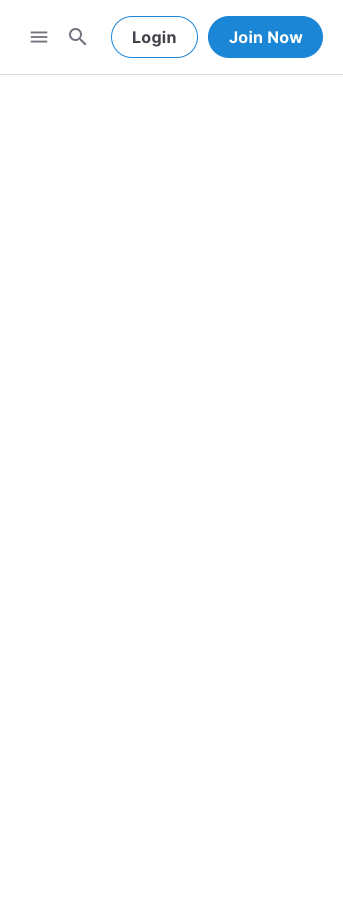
#include <cairo/cairo.h>
#include <math.h>
#include <stddef.h>

static cairo_t *cr;

static void rgb(unsigned color)
{
	cairo_set_source_rgb(cr, (color >> 16) / 255.0, (color >> 8 & 255) / 255.0, (color & 255) / 255.0);
}

static void tracked(double x, double y, const char *s, double letter, double word)
{
	cairo_move_to(cr, x, y);
	while (*s) {
		char ch[5] = {0};
		int n = 0;
		do ch[n++] = *s++; while ((*s & 0xC0) == 0x80);
		cairo_show_text(cr, ch);
		cairo_rel_move_to(cr, letter + word * (*ch == ' '), 0);
	}
}

static void rrect(double x, double y, double w, double h, double r)
{
	cairo_new_sub_path(cr);
	cairo_arc(cr, x + w - r, y + h - r, r, 0, M_PI / 2);
	cairo_arc(cr, x + r, y + h - r, r, M_PI / 2, M_PI);
	cairo_arc(cr, x + r, y + r, r, M_PI, 1.5 * M_PI);
	cairo_arc(cr, x + w - r, y + r, r, 1.5 * M_PI, 2 * M_PI);
	cairo_close_path(cr);
}

static void image(const char *path, double x, double y, double w, double h)
{
	cairo_surface_t *image = cairo_image_surface_create_from_png(path);
	cairo_save(cr);
	cairo_set_source_surface(cr, image, x, y);
	cairo_rectangle(cr, x, y, w, h);
	cairo_fill(cr);
	cairo_restore(cr);
	cairo_surface_destroy(image);
}

int main(void) {
	cairo_surface_t *surface = cairo_image_surface_create(CAIRO_FORMAT_RGB24, 343, 902);
	cr = cairo_create(surface);
	cairo_font_options_t *options = cairo_font_options_create();
	cairo_font_options_set_hint_metrics(options, CAIRO_HINT_METRICS_OFF);
	cairo_font_options_set_hint_style(options, CAIRO_HINT_STYLE_NONE);
	cairo_set_font_options(cr, options);
	cairo_set_miter_limit(cr, 4);
	rgb(0xffffff);
	cairo_paint(cr);
	rgb(0xd3dbe3);
	cairo_rectangle(cr, 0, 74, 343, 1);
	cairo_fill(cr);
	image("img/1.png", 30, 31, 18, 12);
	image("img/2.png", 69, 28, 18, 18);
	rrect(111.5, 16.5, 86, 41, 20.5);
	rgb(0x1b85d6);
	cairo_set_line_width(cr, 1);
	cairo_stroke(cr);
	rrect(208.5, 16.5, 114, 41, 20.5);
	cairo_fill_preserve(cr);
	cairo_stroke(cr);
	cairo_select_font_face(cr, "Inter", CAIRO_FONT_SLANT_NORMAL, CAIRO_FONT_WEIGHT_BOLD);
	cairo_set_font_size(cr, 16);
	rgb(0x43434d);
	tracked(132, 43, "Login", 0.25, 0);
	rgb(0xffffff);
	tracked(229, 43, "Join Now", 0.25, 0);
	cairo_surface_write_to_png(surface, "page.png");
	cairo_font_options_destroy(options);
	cairo_destroy(cr);
	cairo_surface_destroy(surface);
	return 0;
}
